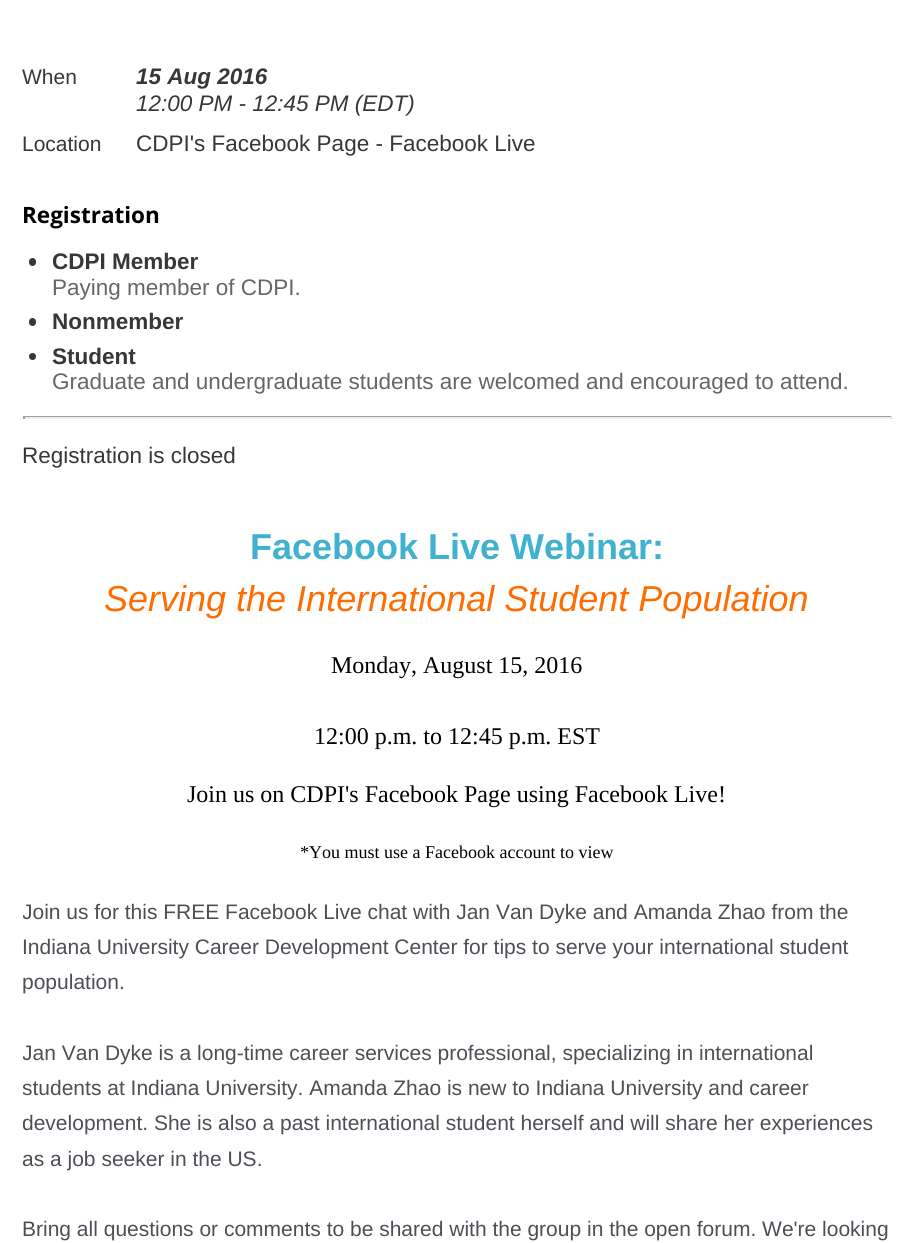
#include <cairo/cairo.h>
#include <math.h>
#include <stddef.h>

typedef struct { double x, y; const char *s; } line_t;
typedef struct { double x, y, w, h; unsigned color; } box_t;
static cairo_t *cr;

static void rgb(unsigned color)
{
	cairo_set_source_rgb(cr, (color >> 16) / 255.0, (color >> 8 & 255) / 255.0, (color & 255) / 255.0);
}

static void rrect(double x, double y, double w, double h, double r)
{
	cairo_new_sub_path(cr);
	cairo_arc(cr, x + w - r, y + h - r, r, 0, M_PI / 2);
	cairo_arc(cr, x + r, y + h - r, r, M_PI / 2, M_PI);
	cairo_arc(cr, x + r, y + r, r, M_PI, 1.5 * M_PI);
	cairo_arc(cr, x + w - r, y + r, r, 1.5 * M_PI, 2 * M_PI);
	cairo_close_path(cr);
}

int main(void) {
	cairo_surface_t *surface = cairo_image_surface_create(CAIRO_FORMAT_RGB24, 913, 1243);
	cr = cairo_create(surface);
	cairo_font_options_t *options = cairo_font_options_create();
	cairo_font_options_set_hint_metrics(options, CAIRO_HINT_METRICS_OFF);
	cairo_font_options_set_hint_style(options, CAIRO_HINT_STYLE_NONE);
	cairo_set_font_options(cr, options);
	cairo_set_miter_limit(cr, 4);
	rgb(0xffffff);
	cairo_paint(cr);
	rgb(0x373737);
	rrect(29, 258, 7, 8, 3.5);
	cairo_fill(cr);
	rrect(29, 318, 7, 8, 3.5);
	cairo_fill(cr);
	cairo_arc(cr, 32.5, 356.5, 3.5, 0, 2 * M_PI);
	cairo_fill(cr);
	{
		static const box_t items[] = {
			{23, 416, 870, 1, 0x9f9f9f},
			{891, 416, 2, 3, 0xeeeeee},
			{23, 417, 870, 2, 0xeeeeee},
			{23, 416, 2, 3, 0x9f9f9f},
		};
		for (size_t i = 0; i < sizeof items / sizeof *items; i++) {
			rgb(items[i].color);
			cairo_rectangle(cr, items[i].x, items[i].y, items[i].w, items[i].h);
			cairo_fill(cr);
		}
	}
	cairo_select_font_face(cr, "Liberation Sans", CAIRO_FONT_SLANT_NORMAL, CAIRO_FONT_WEIGHT_NORMAL);
	cairo_set_font_size(cr, 21);
	rgb(0x373737);
	cairo_move_to(cr, 22, 84);
	cairo_show_text(cr, "When");
	cairo_select_font_face(cr, "Liberation Sans", CAIRO_FONT_SLANT_ITALIC, CAIRO_FONT_WEIGHT_BOLD);
	cairo_set_font_size(cr, 22.5);
	cairo_move_to(cr, 136, 84);
	cairo_show_text(cr, "15 Aug 2016");
	cairo_select_font_face(cr, "Liberation Sans", CAIRO_FONT_SLANT_ITALIC, CAIRO_FONT_WEIGHT_NORMAL);
	cairo_move_to(cr, 136, 111);
	cairo_show_text(cr, "12:00 PM - 12:45 PM (EDT)");
	cairo_select_font_face(cr, "Liberation Sans", CAIRO_FONT_SLANT_NORMAL, CAIRO_FONT_WEIGHT_NORMAL);
	cairo_set_font_size(cr, 21);
	cairo_move_to(cr, 22, 151);
	cairo_show_text(cr, "Location");
	cairo_set_font_size(cr, 22.5);
	cairo_move_to(cr, 136, 151);
	cairo_show_text(cr, "CDPI's Facebook Page - Facebook Live");
	cairo_select_font_face(cr, "Open Sans", CAIRO_FONT_SLANT_NORMAL, CAIRO_FONT_WEIGHT_BOLD);
	rgb(0x000000);
	cairo_move_to(cr, 22, 223);
	cairo_show_text(cr, "Registration");
	cairo_select_font_face(cr, "Liberation Sans", CAIRO_FONT_SLANT_NORMAL, CAIRO_FONT_WEIGHT_BOLD);
	rgb(0x373737);
	cairo_move_to(cr, 52, 269);
	cairo_show_text(cr, "CDPI Member");
	cairo_select_font_face(cr, "Liberation Sans", CAIRO_FONT_SLANT_NORMAL, CAIRO_FONT_WEIGHT_NORMAL);
	rgb(0x666666);
	cairo_move_to(cr, 52, 295);
	cairo_show_text(cr, "Paying member of CDPI.");
	cairo_select_font_face(cr, "Liberation Sans", CAIRO_FONT_SLANT_NORMAL, CAIRO_FONT_WEIGHT_BOLD);
	rgb(0x373737);
	cairo_move_to(cr, 52, 329);
	cairo_show_text(cr, "Nonmember");
	cairo_move_to(cr, 52, 364);
	cairo_show_text(cr, "Student");
	cairo_select_font_face(cr, "Liberation Sans", CAIRO_FONT_SLANT_NORMAL, CAIRO_FONT_WEIGHT_NORMAL);
	rgb(0x666666);
	cairo_move_to(cr, 52, 389);
	cairo_show_text(cr, "Graduate and undergraduate students are welcomed and encouraged to attend.");
	rgb(0x373737);
	cairo_move_to(cr, 22, 463);
	cairo_show_text(cr, "Registration is closed");
	cairo_select_font_face(cr, "Liberation Sans", CAIRO_FONT_SLANT_NORMAL, CAIRO_FONT_WEIGHT_BOLD);
	cairo_set_font_size(cr, 36);
	rgb(0x40b2cf);
	cairo_move_to(cr, 250, 559);
	cairo_show_text(cr, "Facebook Live Webinar:");
	cairo_select_font_face(cr, "Liberation Sans", CAIRO_FONT_SLANT_ITALIC, CAIRO_FONT_WEIGHT_NORMAL);
	rgb(0xff6c00);
	cairo_move_to(cr, 104, 611);
	cairo_show_text(cr, "Serving the International Student Population");
	cairo_select_font_face(cr, "Liberation Serif", CAIRO_FONT_SLANT_NORMAL, CAIRO_FONT_WEIGHT_NORMAL);
	cairo_set_font_size(cr, 24);
	rgb(0x000000);
	{
		static const line_t items[] = {
			{331, 673, "Monday, August 15, 2016"},
			{314, 744, "12:00 p.m. to 12:45 p.m. EST"},
			{187, 802, "Join us on CDPI's Facebook Page using Facebook Live!"},
		};
		for (size_t i = 0; i < sizeof items / sizeof *items; i++) {
			cairo_move_to(cr, items[i].x, items[i].y);
			cairo_show_text(cr, items[i].s);
		}
	}
	cairo_set_font_size(cr, 18);
	cairo_move_to(cr, 300, 858);
	cairo_show_text(cr, "*You must use a Facebook account to view");
	cairo_save(cr);
	cairo_rectangle(cr, 23, 519, 870, 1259);
	cairo_clip(cr);
	cairo_select_font_face(cr, "Liberation Sans", CAIRO_FONT_SLANT_NORMAL, CAIRO_FONT_WEIGHT_NORMAL);
	cairo_set_font_size(cr, 21);
	rgb(0x4b4f56);
	cairo_move_to(cr, 22, 919);
	cairo_show_text(cr, "Join us for this FREE Facebook Live chat with Jan Van Dyke and Amanda Zhao from the");
	cairo_restore(cr);
	cairo_select_font_face(cr, "Liberation Sans", CAIRO_FONT_SLANT_NORMAL, CAIRO_FONT_WEIGHT_NORMAL);
	cairo_set_font_size(cr, 21);
	rgb(0x4b4f56);
	cairo_move_to(cr, 22, 954);
	cairo_show_text(cr, "Indiana University Career Development Center for tips to serve your international student");
	cairo_move_to(cr, 22, 989);
	cairo_show_text(cr, "population.");
	cairo_save(cr);
	cairo_rectangle(cr, 23, 519, 870, 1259);
	cairo_clip(cr);
	{
		static const line_t items[] = {
			{22, 1060, "Jan Van Dyke is a long-time career services professional, specializing in international"},
			{22, 1095, "students at Indiana University. Amanda Zhao is new to Indiana University and career"},
			{22, 1130, "development. She is also a past international student herself and will share her experiences"},
			{22, 1166, "as a job seeker in the US."},
		};
		for (size_t i = 0; i < sizeof items / sizeof *items; i++) {
			cairo_move_to(cr, items[i].x, items[i].y);
			cairo_show_text(cr, items[i].s);
		}
	}
	cairo_restore(cr);
	cairo_move_to(cr, 22, 1236);
	cairo_show_text(cr, "Bring all questions or comments to be shared with the group in the open forum. We're looking");
	cairo_surface_write_to_png(surface, "page.png");
	cairo_font_options_destroy(options);
	cairo_destroy(cr);
	cairo_surface_destroy(surface);
	return 0;
}
